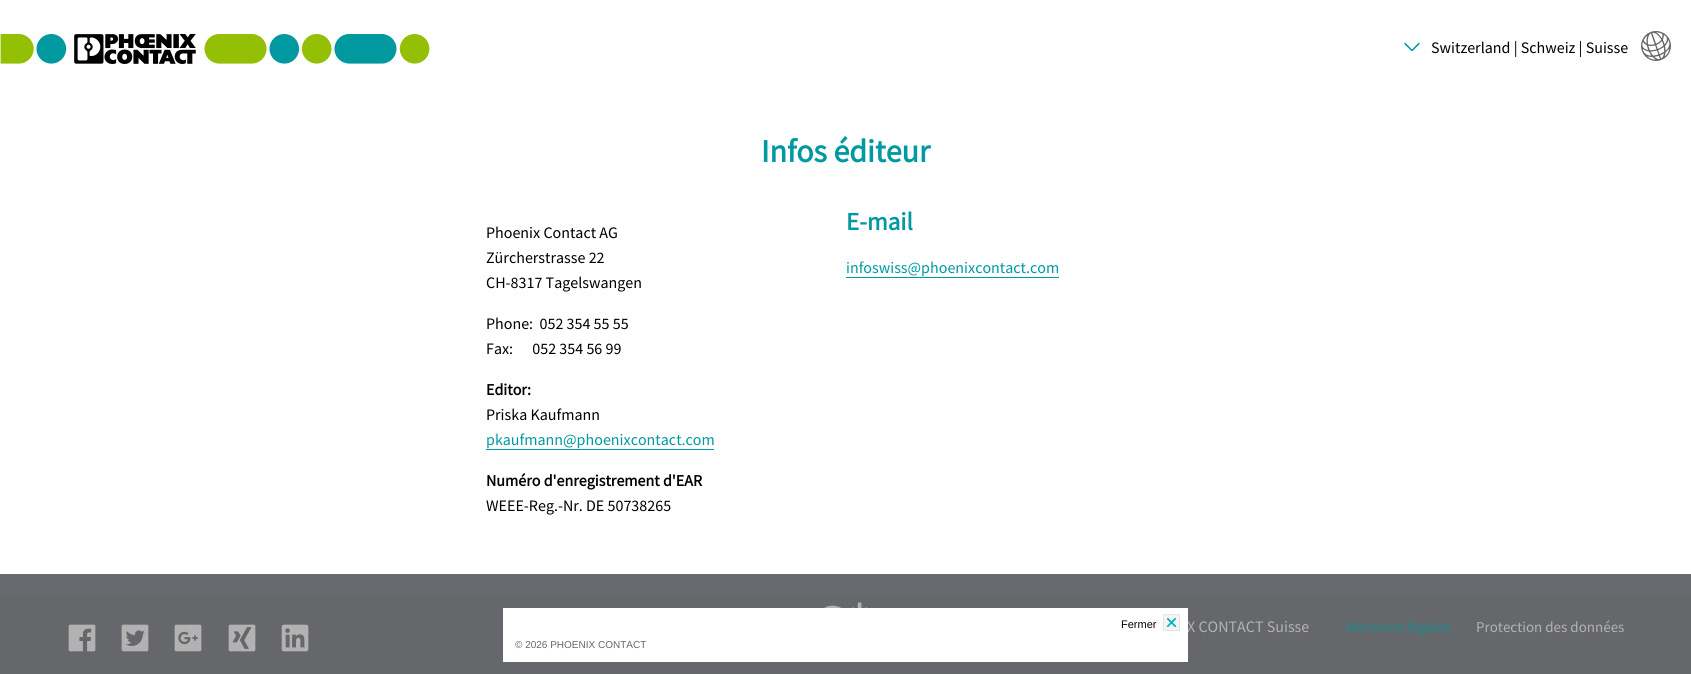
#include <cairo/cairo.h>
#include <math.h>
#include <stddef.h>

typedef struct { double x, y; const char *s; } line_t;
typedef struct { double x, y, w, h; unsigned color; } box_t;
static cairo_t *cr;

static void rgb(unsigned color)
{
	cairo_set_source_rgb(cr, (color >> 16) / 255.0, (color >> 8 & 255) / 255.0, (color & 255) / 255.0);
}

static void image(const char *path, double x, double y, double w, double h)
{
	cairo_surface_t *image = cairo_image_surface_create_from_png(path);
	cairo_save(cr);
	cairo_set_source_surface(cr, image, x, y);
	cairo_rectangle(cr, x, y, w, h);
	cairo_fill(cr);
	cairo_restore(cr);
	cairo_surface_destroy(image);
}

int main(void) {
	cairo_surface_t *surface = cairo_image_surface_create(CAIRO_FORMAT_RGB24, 1691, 674);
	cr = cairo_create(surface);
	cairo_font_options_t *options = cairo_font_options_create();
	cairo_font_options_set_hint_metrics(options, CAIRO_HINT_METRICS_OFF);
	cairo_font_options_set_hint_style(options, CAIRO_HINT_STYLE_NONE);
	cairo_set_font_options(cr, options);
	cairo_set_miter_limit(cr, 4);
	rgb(0xffffff);
	cairo_paint(cr);
	image("img/1.png", 0, 34, 430, 30);
	image("img/2.png", 1404, 43, 16, 8);
	image("img/3.png", 1641, 31, 30, 30);
	{
		static const box_t items[] = {
			{486, 449, 228, 1, 0x0099a1},
			{846, 277, 213, 1, 0x0099a1},
			{0, 574, 1691, 22, 0x676a6f},
			{0, 596, 1691, 78, 0x66676a},
		};
		for (size_t i = 0; i < sizeof items / sizeof *items; i++) {
			rgb(items[i].color);
			cairo_rectangle(cr, items[i].x, items[i].y, items[i].w, items[i].h);
			cairo_fill(cr);
		}
	}
	image("img/4.png", 824, 602, 44, 6);
	image("img/5.png", 68, 624, 28, 28);
	image("img/6.png", 121, 624, 28, 28);
	image("img/7.png", 174, 624, 28, 28);
	image("img/8.png", 228, 624, 28, 28);
	image("img/9.png", 281, 624, 28, 28);
	cairo_select_font_face(cr, "Source Sans Pro", CAIRO_FONT_SLANT_NORMAL, CAIRO_FONT_WEIGHT_NORMAL);
	cairo_set_font_size(cr, 16);
	rgb(0x000000);
	cairo_move_to(cr, 1431, 53);
	cairo_show_text(cr, "Switzerland | Schweiz | Suisse");
	cairo_select_font_face(cr, "Source Sans Pro", CAIRO_FONT_SLANT_NORMAL, CAIRO_FONT_WEIGHT_BOLD);
	cairo_set_font_size(cr, 32);
	rgb(0x0099a1);
	cairo_move_to(cr, 761, 162);
	cairo_show_text(cr, "Infos éditeur");
	cairo_select_font_face(cr, "Source Sans Pro", CAIRO_FONT_SLANT_NORMAL, CAIRO_FONT_WEIGHT_NORMAL);
	cairo_set_font_size(cr, 16);
	rgb(0x000000);
	{
		static const line_t items[] = {
			{486, 238, "Phoenix Contact AG"},
			{486, 263, "Zürcherstrasse 22"},
			{486, 288, "CH-8317 Tagelswangen"},
			{486, 329, "Phone:  052 354 55 55"},
			{486, 354, "Fax:      052 354 56 99"},
		};
		for (size_t i = 0; i < sizeof items / sizeof *items; i++) {
			cairo_move_to(cr, items[i].x, items[i].y);
			cairo_show_text(cr, items[i].s);
		}
	}
	cairo_select_font_face(cr, "Source Sans Pro", CAIRO_FONT_SLANT_NORMAL, CAIRO_FONT_WEIGHT_BOLD);
	cairo_move_to(cr, 486, 395);
	cairo_show_text(cr, "Editor:");
	cairo_select_font_face(cr, "Source Sans Pro", CAIRO_FONT_SLANT_NORMAL, CAIRO_FONT_WEIGHT_NORMAL);
	cairo_move_to(cr, 486, 420);
	cairo_show_text(cr, "Priska Kaufmann");
	rgb(0x0099a1);
	cairo_move_to(cr, 486, 445);
	cairo_show_text(cr, "pkaufmann@phoenixcontact.com");
	cairo_select_font_face(cr, "Source Sans Pro", CAIRO_FONT_SLANT_NORMAL, CAIRO_FONT_WEIGHT_BOLD);
	rgb(0x000000);
	cairo_move_to(cr, 486, 486);
	cairo_show_text(cr, "Numéro d'enregistrement d'EAR");
	cairo_select_font_face(cr, "Source Sans Pro", CAIRO_FONT_SLANT_NORMAL, CAIRO_FONT_WEIGHT_NORMAL);
	cairo_move_to(cr, 486, 511);
	cairo_show_text(cr, "WEEE-Reg.-Nr. DE 50738265");
	cairo_select_font_face(cr, "Source Sans Pro", CAIRO_FONT_SLANT_NORMAL, CAIRO_FONT_WEIGHT_BOLD);
	cairo_set_font_size(cr, 25);
	rgb(0x0099a1);
	cairo_move_to(cr, 846, 230);
	cairo_show_text(cr, "E-mail");
	cairo_select_font_face(cr, "Source Sans Pro", CAIRO_FONT_SLANT_NORMAL, CAIRO_FONT_WEIGHT_NORMAL);
	cairo_set_font_size(cr, 16);
	cairo_move_to(cr, 846, 273);
	cairo_show_text(cr, "infoswiss@phoenixcontact.com");
	rgb(0xb2b2b2);
	cairo_move_to(cr, 1187, 632);
	cairo_show_text(cr, "X CONTACT Suisse");
	cairo_select_font_face(cr, "Source Sans Pro", CAIRO_FONT_SLANT_NORMAL, CAIRO_FONT_WEIGHT_BOLD);
	cairo_set_font_size(cr, 15);
	rgb(0x327f83);
	cairo_move_to(cr, 1346, 632);
	cairo_show_text(cr, "Mentions légales");
	cairo_select_font_face(cr, "Source Sans Pro", CAIRO_FONT_SLANT_NORMAL, CAIRO_FONT_WEIGHT_NORMAL);
	rgb(0xb2b2b2);
	cairo_move_to(cr, 1476, 632);
	cairo_show_text(cr, "Protection des données");
	rgb(0xffffff);
	cairo_rectangle(cr, 503, 608, 685, 54);
	cairo_fill(cr);
	cairo_select_font_face(cr, "Liberation Sans", CAIRO_FONT_SLANT_NORMAL, CAIRO_FONT_WEIGHT_NORMAL);
	cairo_set_font_size(cr, 11);
	rgb(0x000000);
	cairo_move_to(cr, 1121, 628);
	cairo_show_text(cr, "Fermer");
	image("img/10.png", 1163, 614, 17, 17);
	cairo_set_font_size(cr, 10);
	rgb(0x666666);
	cairo_move_to(cr, 515, 648);
	cairo_show_text(cr, "© 2026 PHOENIX CONTACT");
	cairo_surface_write_to_png(surface, "page.png");
	cairo_font_options_destroy(options);
	cairo_destroy(cr);
	cairo_surface_destroy(surface);
	return 0;
}
